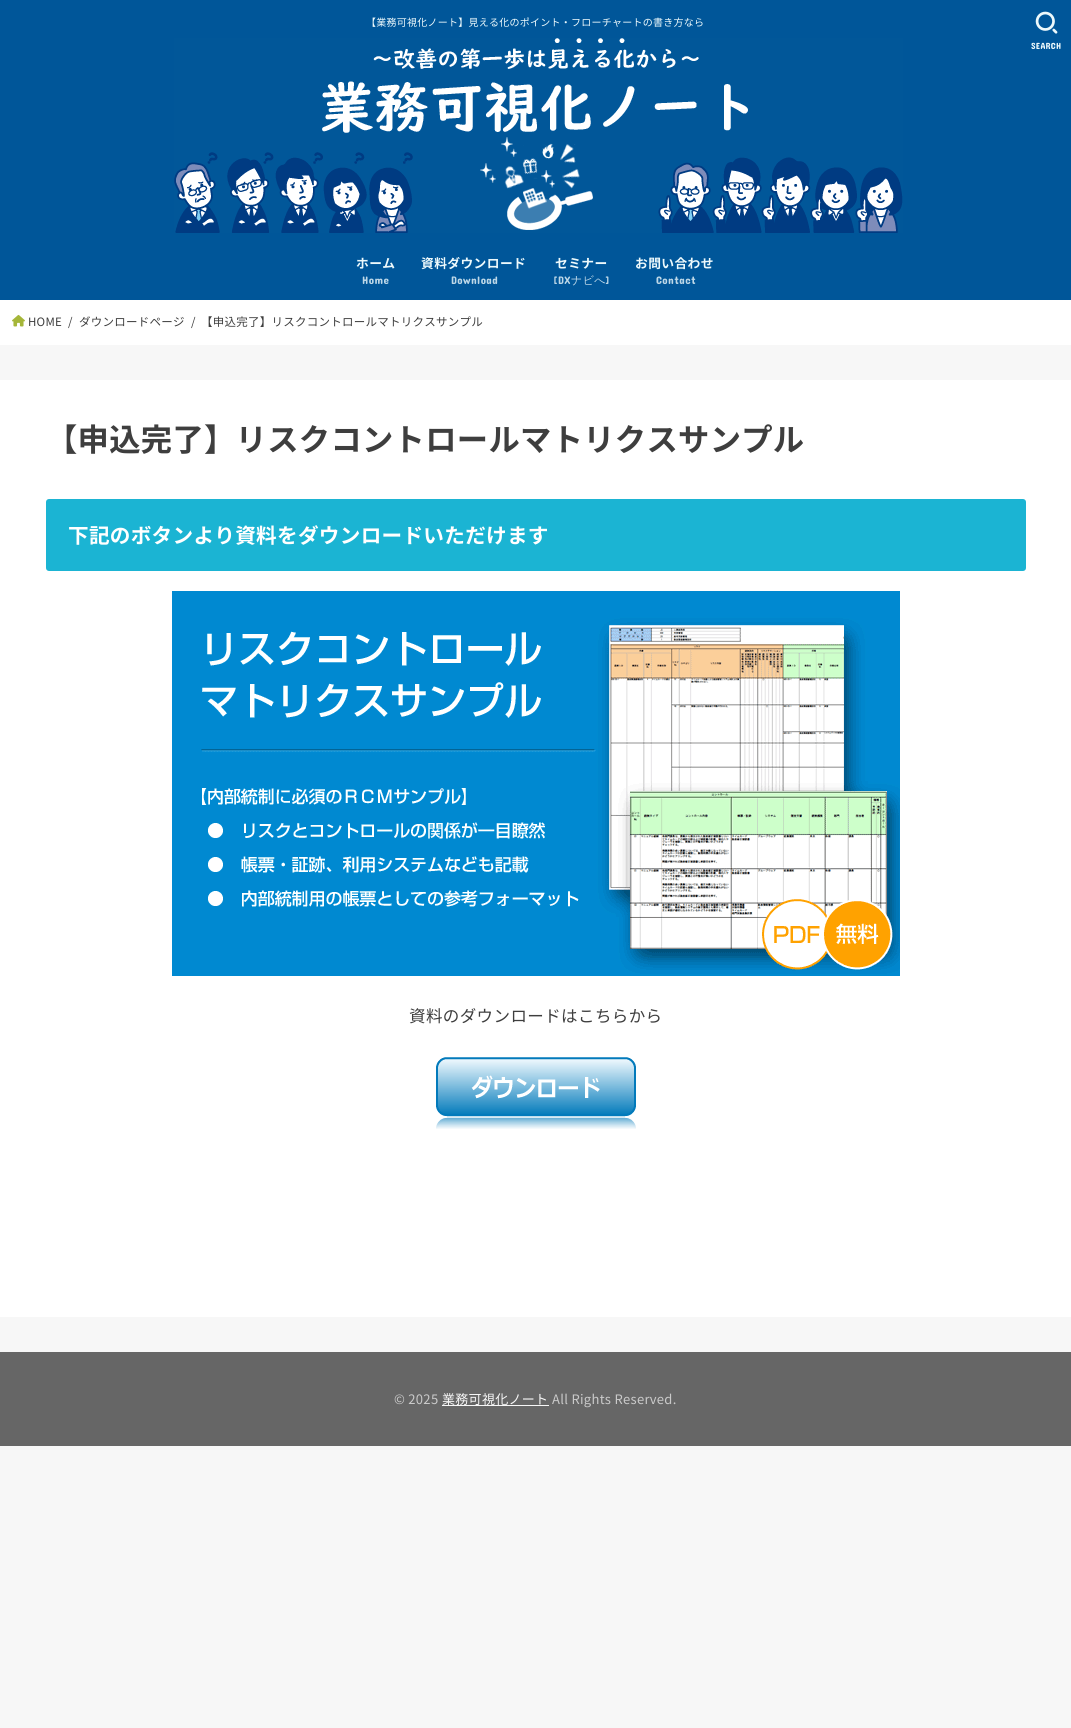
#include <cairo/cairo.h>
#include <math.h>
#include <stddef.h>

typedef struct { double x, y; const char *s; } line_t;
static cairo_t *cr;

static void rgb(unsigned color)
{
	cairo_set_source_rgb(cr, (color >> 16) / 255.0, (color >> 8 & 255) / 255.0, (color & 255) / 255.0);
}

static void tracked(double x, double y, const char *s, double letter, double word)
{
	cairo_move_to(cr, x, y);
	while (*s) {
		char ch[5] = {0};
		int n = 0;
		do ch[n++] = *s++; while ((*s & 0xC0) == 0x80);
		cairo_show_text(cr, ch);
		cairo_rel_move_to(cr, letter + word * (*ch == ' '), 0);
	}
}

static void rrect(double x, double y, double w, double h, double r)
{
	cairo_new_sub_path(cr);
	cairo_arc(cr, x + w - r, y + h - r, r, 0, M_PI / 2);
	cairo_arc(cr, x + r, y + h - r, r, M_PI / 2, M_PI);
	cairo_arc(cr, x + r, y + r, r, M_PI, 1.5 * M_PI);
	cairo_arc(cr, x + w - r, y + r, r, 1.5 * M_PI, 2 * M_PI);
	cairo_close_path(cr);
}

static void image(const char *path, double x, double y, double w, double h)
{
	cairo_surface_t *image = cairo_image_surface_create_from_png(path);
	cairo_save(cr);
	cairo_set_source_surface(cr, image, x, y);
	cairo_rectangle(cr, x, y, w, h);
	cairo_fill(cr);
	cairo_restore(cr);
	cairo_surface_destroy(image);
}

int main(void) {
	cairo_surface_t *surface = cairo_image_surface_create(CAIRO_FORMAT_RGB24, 1071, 1728);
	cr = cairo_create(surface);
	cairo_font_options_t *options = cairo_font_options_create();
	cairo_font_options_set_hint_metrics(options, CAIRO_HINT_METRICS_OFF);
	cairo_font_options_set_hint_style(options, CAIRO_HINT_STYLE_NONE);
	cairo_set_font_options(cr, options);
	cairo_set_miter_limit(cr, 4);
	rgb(0xf7f7f7);
	cairo_paint(cr);
	rgb(0x005699);
	cairo_rectangle(cr, 0, 0, 1071, 300);
	cairo_fill(cr);
	image("img/1.png", 174, 38, 729, 195);
	image("img/2.png", 1035, 11, 23, 23);
	rgb(0xffffff);
	cairo_rectangle(cr, 0, 300, 1071, 45);
	cairo_fill(cr);
	image("img/3.png", 12, 314, 13, 13);
	cairo_rectangle(cr, 0, 380, 1071, 937);
	cairo_fill(cr);
	rgb(0x1bb4d3);
	rrect(46, 499, 980, 72, 3);
	cairo_fill(cr);
	image("img/4.png", 172, 591, 728, 385);
	image("img/5.png", 436, 1057, 200, 72);
	rgb(0x666666);
	cairo_rectangle(cr, 0, 1352, 1071, 94);
	cairo_fill(cr);
	rgb(0xf7f7f7);
	cairo_rectangle(cr, 442, 1405, 107, 1);
	cairo_fill(cr);
	cairo_select_font_face(cr, "Noto Sans JP", CAIRO_FONT_SLANT_NORMAL, CAIRO_FONT_WEIGHT_NORMAL);
	cairo_set_font_size(cr, 10);
	rgb(0xedf9fc);
	tracked(366, 26, "【業務可視化ノート】見える化のポイント・フローチャートの書き方なら", 0.25, 0);
	cairo_select_font_face(cr, "Concert One", CAIRO_FONT_SLANT_NORMAL, CAIRO_FONT_WEIGHT_NORMAL);
	cairo_set_font_size(cr, 9);
	tracked(1031, 49, "SEARCH", 0.3, 0);
	cairo_select_font_face(cr, "Noto Sans JP", CAIRO_FONT_SLANT_NORMAL, CAIRO_FONT_WEIGHT_BOLD);
	cairo_set_font_size(cr, 12.75);
	tracked(356, 268, "ホーム", 0.4, 0);
	cairo_select_font_face(cr, "Concert One", CAIRO_FONT_SLANT_NORMAL, CAIRO_FONT_WEIGHT_NORMAL);
	cairo_set_font_size(cr, 11);
	rgb(0xbed8e8);
	tracked(362, 284, "Home", 0.4, 0);
	cairo_select_font_face(cr, "Noto Sans JP", CAIRO_FONT_SLANT_NORMAL, CAIRO_FONT_WEIGHT_BOLD);
	cairo_set_font_size(cr, 12.75);
	rgb(0xedf9fc);
	tracked(421, 268, "資料ダウンロード", 0.4, 0);
	cairo_select_font_face(cr, "Concert One", CAIRO_FONT_SLANT_NORMAL, CAIRO_FONT_WEIGHT_NORMAL);
	cairo_set_font_size(cr, 11);
	rgb(0xbed8e8);
	tracked(451, 284, "Download", 0.4, 0);
	cairo_select_font_face(cr, "Noto Sans JP", CAIRO_FONT_SLANT_NORMAL, CAIRO_FONT_WEIGHT_BOLD);
	cairo_set_font_size(cr, 12.75);
	rgb(0xedf9fc);
	tracked(555, 268, "セミナー", 0.4, 0);
	cairo_select_font_face(cr, "Concert One", CAIRO_FONT_SLANT_NORMAL, CAIRO_FONT_WEIGHT_NORMAL);
	cairo_set_font_size(cr, 11);
	rgb(0xbed8e8);
	tracked(553, 284, "[DX", 0.4, 0);
	cairo_select_font_face(cr, "WenQuanYi Zen Hei Medium", CAIRO_FONT_SLANT_NORMAL, CAIRO_FONT_WEIGHT_NORMAL);
	tracked(571, 284, "ナビへ", 0.4, 0);
	cairo_select_font_face(cr, "Concert One", CAIRO_FONT_SLANT_NORMAL, CAIRO_FONT_WEIGHT_NORMAL);
	tracked(605, 284, "]", 0.4, 0);
	cairo_select_font_face(cr, "Noto Sans JP", CAIRO_FONT_SLANT_NORMAL, CAIRO_FONT_WEIGHT_BOLD);
	cairo_set_font_size(cr, 12.75);
	rgb(0xedf9fc);
	tracked(635, 268, "お問い合わせ", 0.4, 0);
	cairo_select_font_face(cr, "Concert One", CAIRO_FONT_SLANT_NORMAL, CAIRO_FONT_WEIGHT_NORMAL);
	cairo_set_font_size(cr, 11);
	rgb(0xbed8e8);
	tracked(656, 284, "Contact", 0.4, 0);
	cairo_select_font_face(cr, "Noto Sans JP", CAIRO_FONT_SLANT_NORMAL, CAIRO_FONT_WEIGHT_NORMAL);
	cairo_set_font_size(cr, 11.5);
	rgb(0x3e3e3e);
	{
		static const line_t items[] = {
			{28, 326, "HOME"},
			{68, 326, "/"},
			{79, 326, "ダウンロードページ"},
			{191, 326, "/"},
			{201, 326, "【申込完了】リスクコントロールマトリクスサンプル"},
		};
		for (size_t i = 0; i < sizeof items / sizeof *items; i++) {
			tracked(items[i].x, items[i].y, items[i].s, 0.25, 0);
		}
	}
	cairo_select_font_face(cr, "Noto Sans JP", CAIRO_FONT_SLANT_NORMAL, CAIRO_FONT_WEIGHT_BOLD);
	cairo_set_font_size(cr, 31.3);
	tracked(46, 451, "【申込完了】リスクコントロールマトリクスサンプル", 0.3, 0);
	cairo_set_font_size(cr, 20.6);
	rgb(0xffffff);
	tracked(68, 543, "下記のボタンより資料をダウンロードいただけます", 0.3, 0);
	cairo_select_font_face(cr, "Noto Sans JP", CAIRO_FONT_SLANT_NORMAL, CAIRO_FONT_WEIGHT_NORMAL);
	cairo_set_font_size(cr, 16.5);
	rgb(0x3e3e3e);
	tracked(409, 1022, "資料のダウンロードはこちらから", 0.4, 0);
	cairo_set_font_size(cr, 13);
	rgb(0xcacaca);
	tracked(394, 1404, "© 2025", 0.3, 0);
	rgb(0xf7f7f7);
	tracked(442, 1404, "業務可視化ノート", 0.3, 0);
	rgb(0xcacaca);
	tracked(552, 1404, "All Rights Reserved.", 0.3, 0);
	cairo_surface_write_to_png(surface, "page.png");
	cairo_font_options_destroy(options);
	cairo_destroy(cr);
	cairo_surface_destroy(surface);
	return 0;
}
